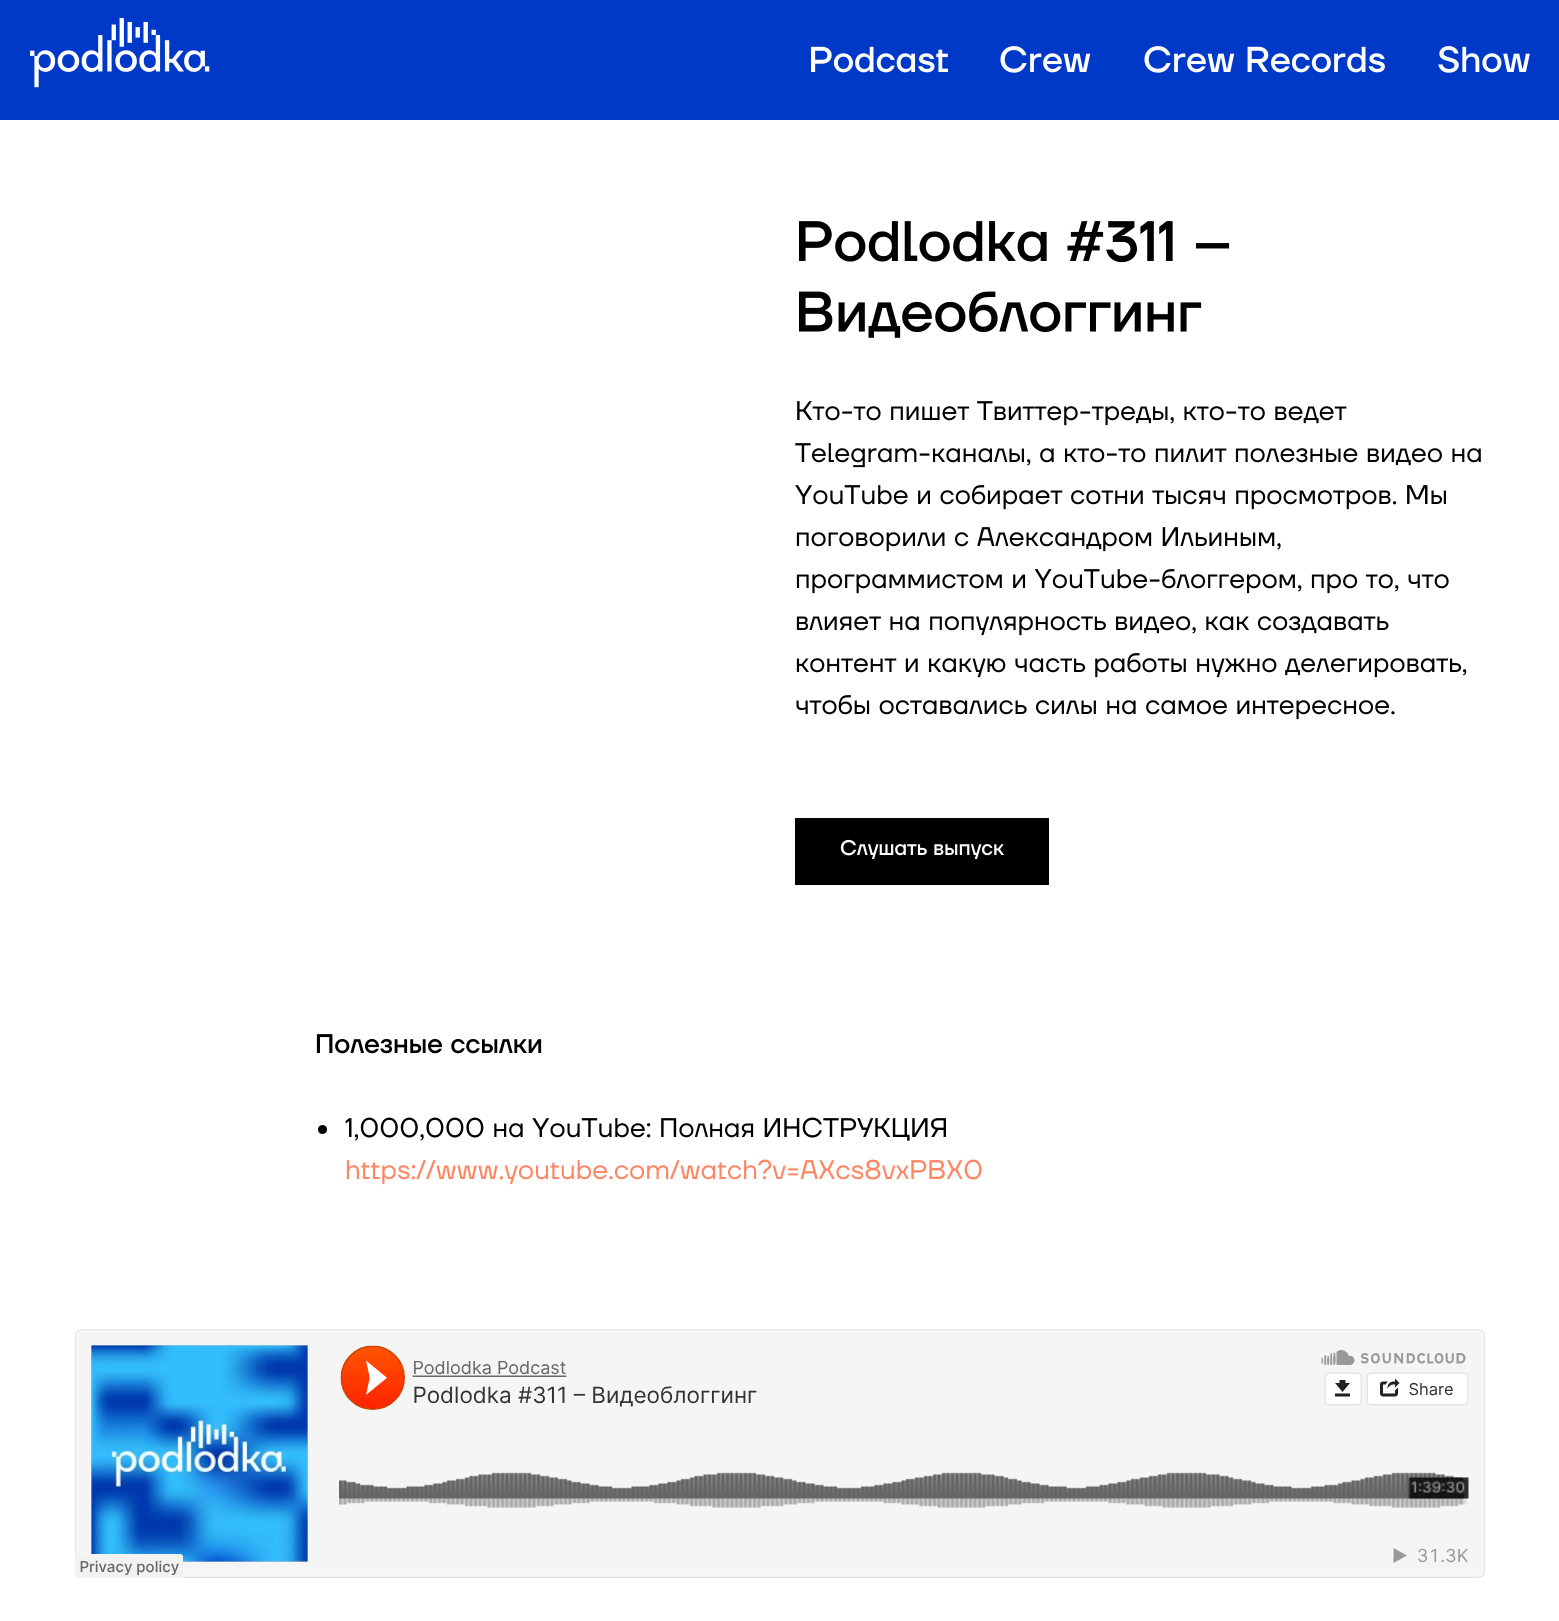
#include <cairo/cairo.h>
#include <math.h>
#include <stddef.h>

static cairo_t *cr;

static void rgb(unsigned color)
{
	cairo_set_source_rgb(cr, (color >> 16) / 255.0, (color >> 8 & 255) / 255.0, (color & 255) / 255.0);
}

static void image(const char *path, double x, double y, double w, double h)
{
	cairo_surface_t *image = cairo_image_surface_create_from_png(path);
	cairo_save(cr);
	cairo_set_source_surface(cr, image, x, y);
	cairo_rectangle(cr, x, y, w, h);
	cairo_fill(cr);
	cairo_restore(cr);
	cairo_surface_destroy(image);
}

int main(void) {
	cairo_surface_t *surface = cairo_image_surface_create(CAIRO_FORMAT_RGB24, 1559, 1621);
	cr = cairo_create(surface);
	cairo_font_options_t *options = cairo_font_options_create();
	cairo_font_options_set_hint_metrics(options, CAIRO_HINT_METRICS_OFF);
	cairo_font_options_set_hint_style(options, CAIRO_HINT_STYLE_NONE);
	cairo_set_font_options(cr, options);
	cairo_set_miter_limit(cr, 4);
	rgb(0xffffff);
	cairo_paint(cr);
	rgb(0x0039c8);
	cairo_rectangle(cr, 0, 0, 1559, 120);
	cairo_fill(cr);
	image("img/1.png", 30, 18, 180, 70);
	image("img/2.png", 811, 46, 137, 27);
	image("img/3.png", 1000, 46, 91, 27);
	image("img/4.png", 1144, 46, 241, 27);
	image("img/5.png", 1438, 46, 92, 27);
	image("img/6.png", 799, 221, 431, 42);
	image("img/7.png", 799, 291, 403, 47);
	image("img/8.png", 797, 401, 550, 25);
	image("img/9.png", 795, 443, 686, 25);
	image("img/10.png", 795, 485, 651, 25);
	image("img/11.png", 796, 527, 485, 25);
	image("img/12.png", 796, 569, 653, 25);
	image("img/13.png", 796, 616, 593, 20);
	image("img/14.png", 796, 653, 671, 25);
	image("img/15.png", 796, 695, 599, 25);
	rgb(0x000000);
	cairo_rectangle(cr, 795, 818, 254, 67);
	cairo_fill(cr);
	image("img/16.png", 840, 839, 164, 20);
	image("img/17.png", 316, 1034, 226, 20);
	cairo_arc(cr, 322.5, 1129.5, 4.5, 0, 2 * M_PI);
	cairo_fill(cr);
	image("img/18.png", 345, 1117, 601, 24);
	image("img/19.png", 346, 1159, 636, 26);
	image("img/20.png", 75, 1329, 1410, 249);
	cairo_surface_write_to_png(surface, "page.png");
	cairo_font_options_destroy(options);
	cairo_destroy(cr);
	cairo_surface_destroy(surface);
	return 0;
}
